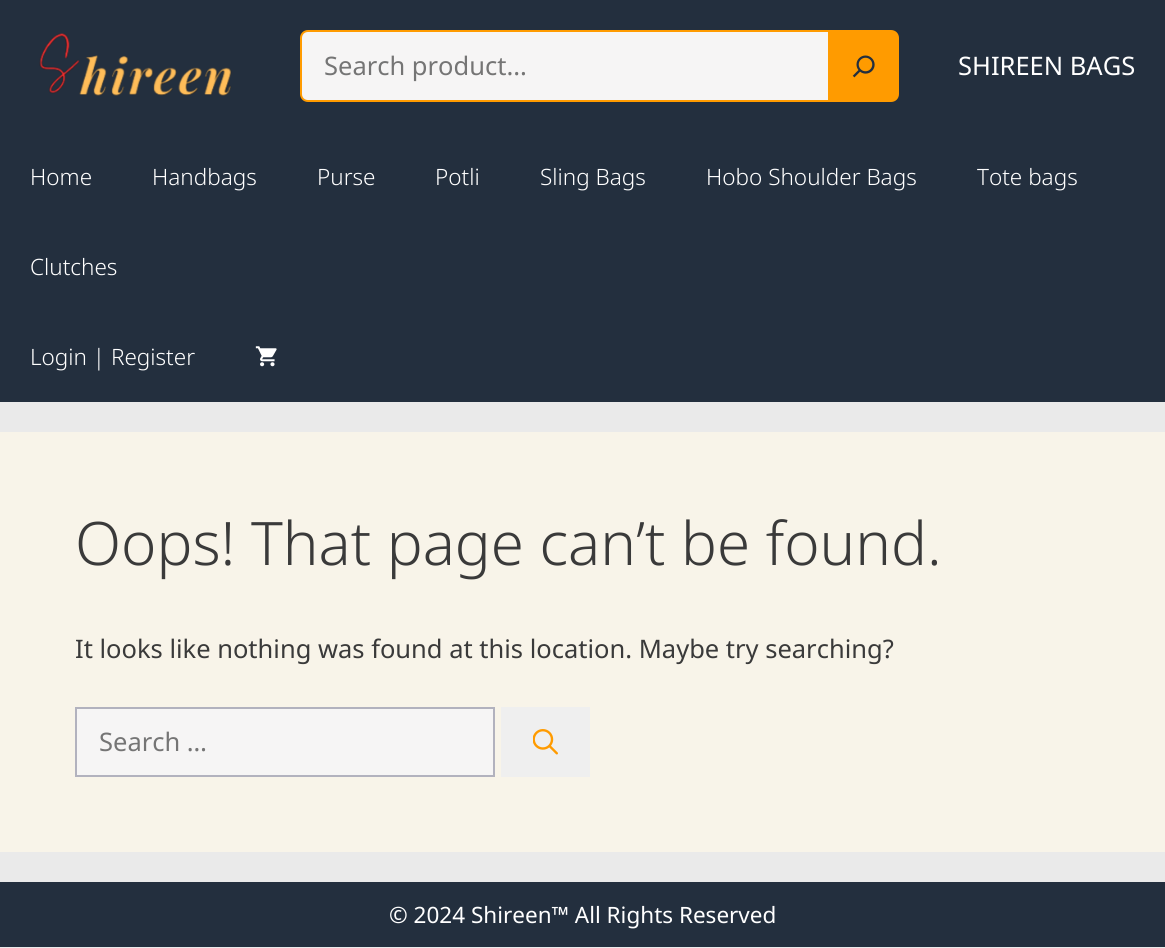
#include <cairo/cairo.h>
#include <math.h>
#include <stddef.h>

typedef struct { double x, y; const char *s; } line_t;
static cairo_t *cr;

static void rgb(unsigned color)
{
	cairo_set_source_rgb(cr, (color >> 16) / 255.0, (color >> 8 & 255) / 255.0, (color & 255) / 255.0);
}

static void image(const char *path, double x, double y, double w, double h)
{
	cairo_surface_t *image = cairo_image_surface_create_from_png(path);
	cairo_save(cr);
	cairo_set_source_surface(cr, image, x, y);
	cairo_rectangle(cr, x, y, w, h);
	cairo_fill(cr);
	cairo_restore(cr);
	cairo_surface_destroy(image);
}

int main(void) {
	cairo_surface_t *surface = cairo_image_surface_create(CAIRO_FORMAT_RGB24, 1165, 948);
	cr = cairo_create(surface);
	cairo_font_options_t *options = cairo_font_options_create();
	cairo_font_options_set_hint_metrics(options, CAIRO_HINT_METRICS_OFF);
	cairo_font_options_set_hint_style(options, CAIRO_HINT_STYLE_NONE);
	cairo_set_font_options(cr, options);
	cairo_set_miter_limit(cr, 4);
	rgb(0xeaeaea);
	cairo_paint(cr);
	rgb(0x232f3e);
	cairo_rectangle(cr, 0, 0, 1165, 402);
	cairo_fill(cr);
	image("img/1.png", 39, 33, 193, 63);
	rgb(0xf6f5f5);
	cairo_new_path(cr);
	cairo_move_to(cr, 308, 31);
	cairo_line_to(cr, 829, 31);
	cairo_line_to(cr, 829, 101);
	cairo_line_to(cr, 308, 101);
	cairo_curve_to(cr, 304, 101, 301, 98, 301, 94);
	cairo_line_to(cr, 301, 38);
	cairo_curve_to(cr, 301, 34, 304, 31, 308, 31);
	cairo_close_path(cr);
	cairo_fill_preserve(cr);
	rgb(0xff9b00);
	cairo_stroke(cr);
	cairo_new_path(cr);
	cairo_move_to(cr, 831, 31);
	cairo_line_to(cr, 891, 31);
	cairo_curve_to(cr, 895, 31, 898, 34, 898, 38);
	cairo_line_to(cr, 898, 94);
	cairo_curve_to(cr, 898, 98, 895, 101, 891, 101);
	cairo_line_to(cr, 831, 101);
	cairo_close_path(cr);
	cairo_fill_preserve(cr);
	cairo_stroke(cr);
	image("img/2.png", 852, 55, 23, 23);
	image("img/3.png", 255, 346, 22, 21);
	rgb(0xf8f4e9);
	cairo_rectangle(cr, 0, 432, 1165, 420);
	cairo_fill(cr);
	rgb(0xf6f5f5);
	cairo_rectangle(cr, 76, 708, 418, 68);
	cairo_fill_preserve(cr);
	rgb(0xb2b2be);
	cairo_stroke(cr);
	rgb(0xefefef);
	cairo_rectangle(cr, 501, 707, 89, 70);
	cairo_fill(cr);
	image("img/4.png", 533, 729, 25, 26);
	rgb(0x232f3e);
	cairo_rectangle(cr, 0, 882, 1165, 65);
	cairo_fill(cr);
	cairo_select_font_face(cr, "Noto Sans", CAIRO_FONT_SLANT_NORMAL, CAIRO_FONT_WEIGHT_NORMAL);
	cairo_set_font_size(cr, 25.5);
	rgb(0x757575);
	cairo_move_to(cr, 324, 75);
	cairo_show_text(cr, "Search product...");
	rgb(0xffffff);
	cairo_move_to(cr, 958, 75);
	cairo_show_text(cr, "SHIREEN BAGS");
	cairo_select_font_face(cr, "Noto Sans Light", CAIRO_FONT_SLANT_NORMAL, CAIRO_FONT_WEIGHT_NORMAL);
	cairo_set_font_size(cr, 22.5);
	{
		static const line_t items[] = {
			{30, 185, "Home"},
			{152, 185, "Handbags"},
			{317, 185, "Purse"},
			{435, 185, "Potli"},
			{540, 185, "Sling Bags"},
			{706, 185, "Hobo Shoulder Bags"},
			{977, 185, "Tote bags"},
			{30, 275, "Clutches"},
			{30, 365, "Login | Register"},
		};
		for (size_t i = 0; i < sizeof items / sizeof *items; i++) {
			cairo_move_to(cr, items[i].x, items[i].y);
			cairo_show_text(cr, items[i].s);
		}
	}
	cairo_set_font_size(cr, 60);
	rgb(0x3a3a3a);
	cairo_move_to(cr, 75, 565);
	cairo_show_text(cr, "Oops! That page can’t be found.");
	cairo_select_font_face(cr, "Noto Sans", CAIRO_FONT_SLANT_NORMAL, CAIRO_FONT_WEIGHT_NORMAL);
	cairo_set_font_size(cr, 25.5);
	cairo_move_to(cr, 75, 658);
	cairo_show_text(cr, "It looks like nothing was found at this location. Maybe try searching?");
	rgb(0x757575);
	cairo_move_to(cr, 99, 751);
	cairo_show_text(cr, "Search …");
	cairo_set_font_size(cr, 22.5);
	rgb(0xffffff);
	cairo_move_to(cr, 389, 923);
	cairo_show_text(cr, "© 2024 Shireen™ All Rights Reserved");
	cairo_surface_write_to_png(surface, "page.png");
	cairo_font_options_destroy(options);
	cairo_destroy(cr);
	cairo_surface_destroy(surface);
	return 0;
}
